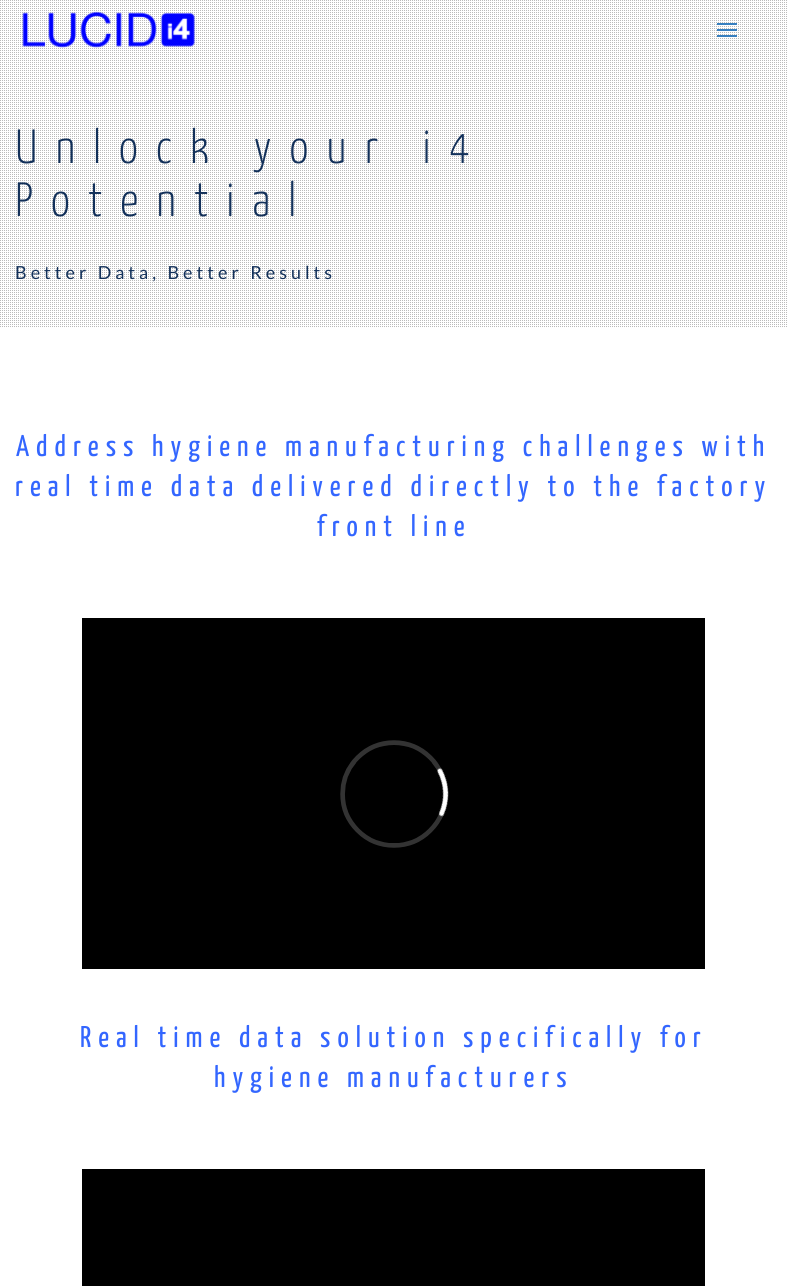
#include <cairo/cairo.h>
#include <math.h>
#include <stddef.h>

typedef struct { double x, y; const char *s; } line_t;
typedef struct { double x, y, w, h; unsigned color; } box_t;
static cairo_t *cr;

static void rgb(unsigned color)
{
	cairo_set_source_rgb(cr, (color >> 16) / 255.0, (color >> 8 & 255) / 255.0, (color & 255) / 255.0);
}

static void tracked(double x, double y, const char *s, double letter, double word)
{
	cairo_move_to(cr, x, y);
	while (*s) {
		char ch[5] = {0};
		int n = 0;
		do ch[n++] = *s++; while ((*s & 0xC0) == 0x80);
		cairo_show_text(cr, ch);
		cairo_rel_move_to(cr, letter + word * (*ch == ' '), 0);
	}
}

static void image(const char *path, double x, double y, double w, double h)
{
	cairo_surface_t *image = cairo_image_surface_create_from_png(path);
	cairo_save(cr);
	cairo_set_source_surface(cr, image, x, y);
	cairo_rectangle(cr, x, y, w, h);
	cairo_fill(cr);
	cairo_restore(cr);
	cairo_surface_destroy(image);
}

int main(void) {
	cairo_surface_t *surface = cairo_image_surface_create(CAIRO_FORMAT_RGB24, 788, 1286);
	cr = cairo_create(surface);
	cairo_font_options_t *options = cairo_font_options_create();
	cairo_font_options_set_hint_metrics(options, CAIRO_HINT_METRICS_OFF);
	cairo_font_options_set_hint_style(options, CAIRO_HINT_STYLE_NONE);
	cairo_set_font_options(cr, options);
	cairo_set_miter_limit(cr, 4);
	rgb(0xffffff);
	cairo_paint(cr);
	image("img/2.png", 0, 0, 787, 327);
	image("img/1.png", 22, 11, 174, 37);
	{
		static const box_t items[] = {
			{717, 29, 20, 2, 0x377fbf},
			{717, 23, 20, 2, 0x377fbf},
			{717, 35, 20, 2, 0x377fbf},
		};
		for (size_t i = 0; i < sizeof items / sizeof *items; i++) {
			rgb(items[i].color);
			cairo_rectangle(cr, items[i].x, items[i].y, items[i].w, items[i].h);
			cairo_fill(cr);
		}
	}
	image("img/3.png", 82, 618, 623, 351);
	rgb(0x000000);
	cairo_rectangle(cr, 82, 1169, 623, 117);
	cairo_fill(cr);
	cairo_select_font_face(cr, "Yanone Kaffeesatz Light", CAIRO_FONT_SLANT_NORMAL, CAIRO_FONT_WEIGHT_NORMAL);
	cairo_set_font_size(cr, 48);
	rgb(0x123059);
	tracked(15, 163, "Unlock your i4", 18, 0);
	tracked(15, 216, "Potential", 18, 0);
	cairo_select_font_face(cr, "Lato", CAIRO_FONT_SLANT_NORMAL, CAIRO_FONT_WEIGHT_NORMAL);
	cairo_set_font_size(cr, 18);
	tracked(15, 279, "Better Data, Better Results", 4, 0);
	cairo_select_font_face(cr, "Yanone Kaffeesatz", CAIRO_FONT_SLANT_NORMAL, CAIRO_FONT_WEIGHT_NORMAL);
	cairo_set_font_size(cr, 30);
	rgb(0x3366ff);
	{
		static const line_t items[] = {
			{16, 456, "Address hygiene manufacturing challenges with"},
			{15, 496, "real time data delivered directly to the factory"},
			{317, 536, "front line"},
			{80, 1047, "Real time data solution specifically for"},
			{214, 1087, "hygiene manufacturers"},
		};
		for (size_t i = 0; i < sizeof items / sizeof *items; i++) {
			tracked(items[i].x, items[i].y, items[i].s, 7, 0);
		}
	}
	cairo_surface_write_to_png(surface, "page.png");
	cairo_font_options_destroy(options);
	cairo_destroy(cr);
	cairo_surface_destroy(surface);
	return 0;
}
